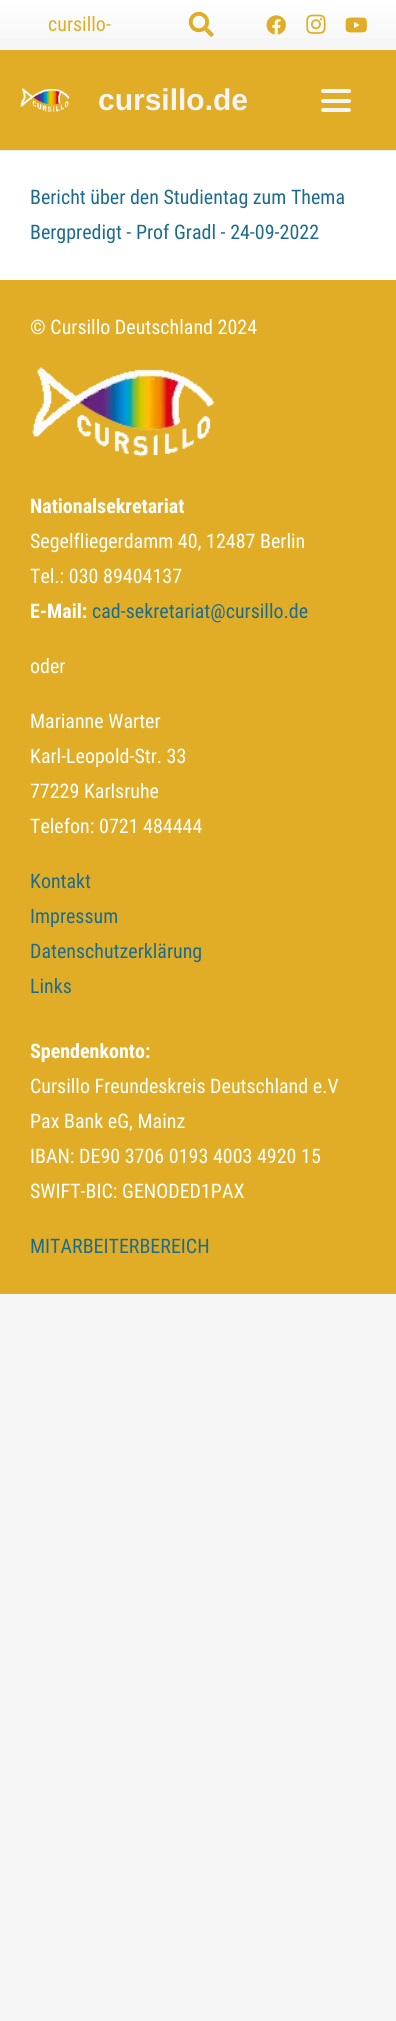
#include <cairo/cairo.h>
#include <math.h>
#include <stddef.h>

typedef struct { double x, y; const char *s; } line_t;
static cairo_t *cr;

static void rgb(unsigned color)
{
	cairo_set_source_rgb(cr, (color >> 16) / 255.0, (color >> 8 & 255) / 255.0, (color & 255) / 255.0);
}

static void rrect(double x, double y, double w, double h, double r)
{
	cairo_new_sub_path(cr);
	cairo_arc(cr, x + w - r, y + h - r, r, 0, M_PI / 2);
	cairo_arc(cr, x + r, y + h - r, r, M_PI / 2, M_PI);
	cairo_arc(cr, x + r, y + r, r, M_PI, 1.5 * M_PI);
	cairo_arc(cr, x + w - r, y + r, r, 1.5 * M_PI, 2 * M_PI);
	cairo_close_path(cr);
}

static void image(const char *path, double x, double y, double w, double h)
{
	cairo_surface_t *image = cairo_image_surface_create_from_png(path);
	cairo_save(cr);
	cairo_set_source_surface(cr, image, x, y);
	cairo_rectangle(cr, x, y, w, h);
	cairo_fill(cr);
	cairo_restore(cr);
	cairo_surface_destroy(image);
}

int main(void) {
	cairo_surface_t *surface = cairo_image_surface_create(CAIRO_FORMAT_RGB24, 396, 2021);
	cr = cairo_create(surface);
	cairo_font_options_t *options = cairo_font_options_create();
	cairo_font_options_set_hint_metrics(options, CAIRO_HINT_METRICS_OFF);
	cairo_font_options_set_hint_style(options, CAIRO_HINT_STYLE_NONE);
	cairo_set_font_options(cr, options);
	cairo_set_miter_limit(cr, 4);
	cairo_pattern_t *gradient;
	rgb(0xf5f5f5);
	cairo_paint(cr);
	rgb(0xffffff);
	cairo_rectangle(cr, 0, 151, 396, 129);
	cairo_fill(cr);
	gradient = cairo_pattern_create_linear(198, 50, 198, 0);
	cairo_pattern_add_color_stop_rgba(gradient, 0, 0.961, 0.961, 0.961, 1);
	cairo_pattern_add_color_stop_rgba(gradient, 1, 1, 1, 1, 1);
	cairo_set_source(cr, gradient);
	cairo_pattern_destroy(gradient);
	cairo_rectangle(cr, 0, 0, 396, 38);
	cairo_fill(cr);
	image("img/1.png", 188, 11, 26, 26);
	image("img/2.png", 266, 15, 20, 20);
	image("img/3.png", 306, 14, 20, 20);
	image("img/4.png", 345, 17, 22, 16);
	rgb(0xebebeb);
	cairo_rectangle(cr, 0, 150, 396, 1);
	cairo_fill(cr);
	rgb(0xe2ad26);
	cairo_rectangle(cr, 0, 50, 396, 100);
	cairo_fill(cr);
	image("img/5.png", 20, 88, 50, 24);
	rgb(0xf5f5f5);
	rrect(321, 99, 30, 4, 2);
	cairo_fill(cr);
	rrect(321, 89, 30, 4, 2);
	cairo_fill(cr);
	rrect(321, 108, 30, 4, 2);
	cairo_fill(cr);
	rgb(0xe2ad26);
	cairo_rectangle(cr, 0, 280, 396, 1014);
	cairo_fill(cr);
	image("img/6.png", 32, 367, 182, 90);
	cairo_select_font_face(cr, "Roboto Condensed", CAIRO_FONT_SLANT_NORMAL, CAIRO_FONT_WEIGHT_NORMAL);
	cairo_set_font_size(cr, 20);
	cairo_move_to(cr, 48, 31);
	cairo_show_text(cr, "cursillo-");
	cairo_select_font_face(cr, "Liberation Sans", CAIRO_FONT_SLANT_NORMAL, CAIRO_FONT_WEIGHT_BOLD);
	cairo_set_font_size(cr, 30);
	rgb(0xf5f5f5);
	cairo_move_to(cr, 98, 110);
	cairo_show_text(cr, "cursillo.de");
	cairo_select_font_face(cr, "Roboto Condensed", CAIRO_FONT_SLANT_NORMAL, CAIRO_FONT_WEIGHT_NORMAL);
	cairo_set_font_size(cr, 20);
	rgb(0x1d6c8e);
	cairo_move_to(cr, 30, 204);
	cairo_show_text(cr, "Bericht über den Studientag zum Thema");
	cairo_move_to(cr, 30, 239);
	cairo_show_text(cr, "Bergpredigt - Prof Gradl - 24-09-2022");
	rgb(0xffffff);
	cairo_move_to(cr, 30, 334);
	cairo_show_text(cr, "© Cursillo Deutschland 2024");
	cairo_select_font_face(cr, "Roboto Condensed", CAIRO_FONT_SLANT_NORMAL, CAIRO_FONT_WEIGHT_BOLD);
	cairo_move_to(cr, 30, 513);
	cairo_show_text(cr, "Nationalsekretariat");
	cairo_select_font_face(cr, "Roboto Condensed", CAIRO_FONT_SLANT_NORMAL, CAIRO_FONT_WEIGHT_NORMAL);
	cairo_move_to(cr, 30, 548);
	cairo_show_text(cr, "Segelfliegerdamm 40, 12487 Berlin");
	cairo_move_to(cr, 30, 583);
	cairo_show_text(cr, "Tel.: 030 89404137");
	cairo_select_font_face(cr, "Roboto Condensed", CAIRO_FONT_SLANT_NORMAL, CAIRO_FONT_WEIGHT_BOLD);
	cairo_move_to(cr, 30, 618);
	cairo_show_text(cr, "E-Mail:");
	cairo_select_font_face(cr, "Roboto Condensed", CAIRO_FONT_SLANT_NORMAL, CAIRO_FONT_WEIGHT_NORMAL);
	rgb(0x1d6c8e);
	cairo_move_to(cr, 92, 618);
	cairo_show_text(cr, "cad-sekretariat@cursillo.de");
	rgb(0xffffff);
	{
		static const line_t items[] = {
			{30, 673, "oder"},
			{30, 728, "Marianne Warter"},
			{30, 763, "Karl-Leopold-Str. 33"},
			{30, 798, "77229 Karlsruhe"},
			{30, 833, "Telefon: 0721 484444"},
		};
		for (size_t i = 0; i < sizeof items / sizeof *items; i++) {
			cairo_move_to(cr, items[i].x, items[i].y);
			cairo_show_text(cr, items[i].s);
		}
	}
	rgb(0x1d6c8e);
	{
		static const line_t items[] = {
			{30, 888, "Kontakt"},
			{30, 923, "Impressum"},
			{30, 958, "Datenschutzerklärung"},
			{30, 993, "Links"},
		};
		for (size_t i = 0; i < sizeof items / sizeof *items; i++) {
			cairo_move_to(cr, items[i].x, items[i].y);
			cairo_show_text(cr, items[i].s);
		}
	}
	cairo_select_font_face(cr, "Roboto Condensed", CAIRO_FONT_SLANT_NORMAL, CAIRO_FONT_WEIGHT_BOLD);
	rgb(0xffffff);
	cairo_move_to(cr, 30, 1058);
	cairo_show_text(cr, "Spendenkonto:");
	cairo_select_font_face(cr, "Roboto Condensed", CAIRO_FONT_SLANT_NORMAL, CAIRO_FONT_WEIGHT_NORMAL);
	{
		static const line_t items[] = {
			{30, 1093, "Cursillo Freundeskreis Deutschland e.V"},
			{30, 1128, "Pax Bank eG, Mainz"},
			{30, 1163, "IBAN: DE90 3706 0193 4003 4920 15"},
			{30, 1198, "SWIFT-BIC: GENODED1PAX"},
		};
		for (size_t i = 0; i < sizeof items / sizeof *items; i++) {
			cairo_move_to(cr, items[i].x, items[i].y);
			cairo_show_text(cr, items[i].s);
		}
	}
	rgb(0x1d6c8e);
	cairo_move_to(cr, 30, 1253);
	cairo_show_text(cr, "MITARBEITERBEREICH");
	cairo_surface_write_to_png(surface, "page.png");
	cairo_font_options_destroy(options);
	cairo_destroy(cr);
	cairo_surface_destroy(surface);
	return 0;
}
